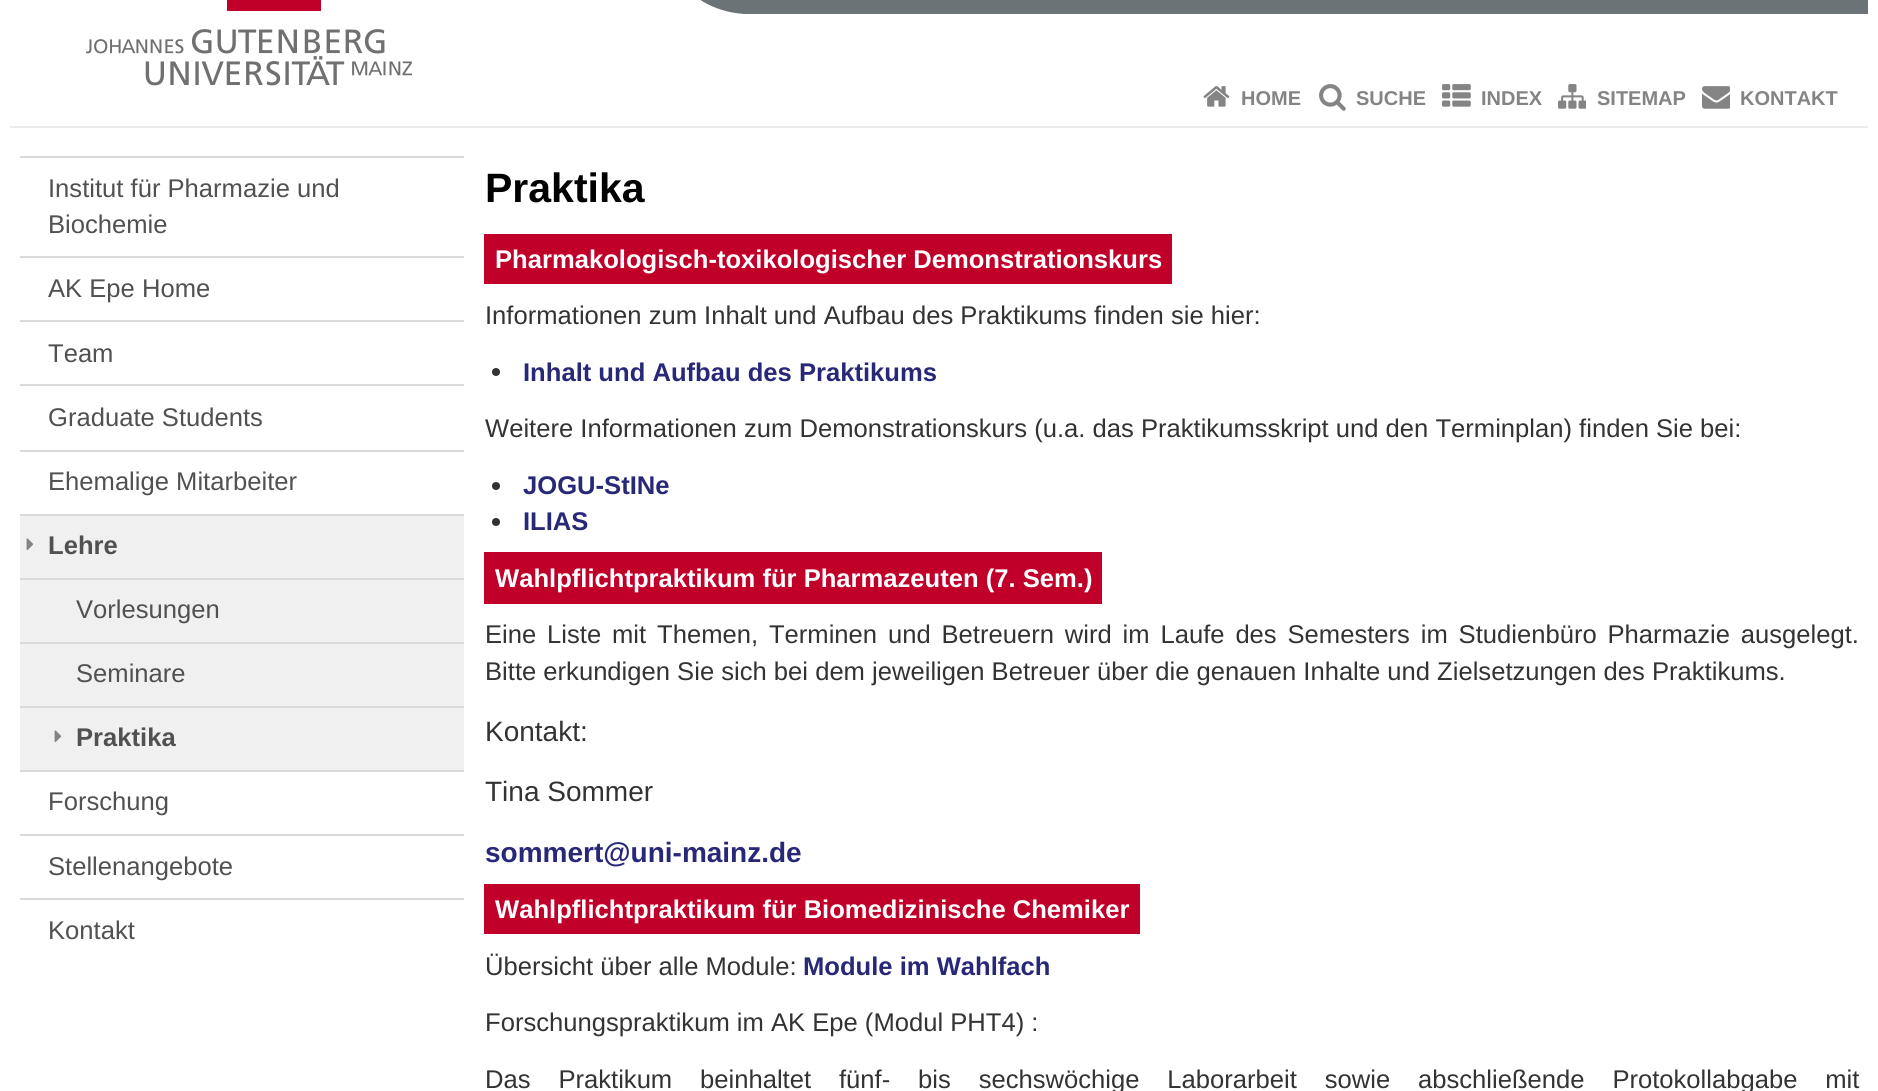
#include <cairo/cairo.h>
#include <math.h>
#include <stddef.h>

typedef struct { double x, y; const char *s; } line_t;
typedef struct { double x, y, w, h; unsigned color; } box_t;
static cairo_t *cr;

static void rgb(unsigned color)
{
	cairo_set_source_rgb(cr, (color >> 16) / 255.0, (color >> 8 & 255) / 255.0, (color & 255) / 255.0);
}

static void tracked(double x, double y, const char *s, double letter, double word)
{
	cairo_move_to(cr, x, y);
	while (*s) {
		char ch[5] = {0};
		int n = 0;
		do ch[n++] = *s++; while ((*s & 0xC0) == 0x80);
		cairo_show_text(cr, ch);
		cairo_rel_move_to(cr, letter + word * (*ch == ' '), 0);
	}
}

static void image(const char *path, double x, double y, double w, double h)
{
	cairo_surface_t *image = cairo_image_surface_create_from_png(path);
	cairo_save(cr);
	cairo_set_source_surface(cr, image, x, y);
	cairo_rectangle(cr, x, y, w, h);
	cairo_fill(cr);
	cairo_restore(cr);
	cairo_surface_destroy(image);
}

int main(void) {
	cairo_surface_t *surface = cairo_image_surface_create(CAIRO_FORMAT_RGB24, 1878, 1091);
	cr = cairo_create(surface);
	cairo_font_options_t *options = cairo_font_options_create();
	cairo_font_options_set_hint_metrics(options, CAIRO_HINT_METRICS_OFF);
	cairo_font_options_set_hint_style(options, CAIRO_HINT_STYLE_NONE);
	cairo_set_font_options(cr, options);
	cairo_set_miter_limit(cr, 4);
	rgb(0xffffff);
	cairo_paint(cr);
	image("img/1.png", 86, 0, 326, 86);
	cairo_save(cr);
	cairo_rectangle(cr, 656, 0, 1212, 68);
	cairo_clip(cr);
	rgb(0x6c7377);
	cairo_new_path(cr);
	cairo_move_to(cr, 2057, 14);
	cairo_line_to(cr, 744, 14);
	cairo_curve_to(cr, 677, 9, 661, -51, 661, -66);
	cairo_line_to(cr, 661, -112);
	cairo_line_to(cr, 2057, -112);
	cairo_close_path(cr);
	cairo_fill(cr);
	cairo_restore(cr);
	image("img/2.png", 1203, 86, 27, 21);
	image("img/3.png", 1319, 84, 27, 27);
	image("img/4.png", 1442, 84, 29, 23);
	image("img/5.png", 1558, 84, 28, 25);
	image("img/6.png", 1702, 86, 28, 23);
	{
		static const box_t items[] = {
			{10, 126, 1858, 2, 0xebebeb},
			{20, 156, 444, 2, 0xdadada},
			{20, 256, 444, 2, 0xdadada},
			{20, 320, 444, 2, 0xdadada},
			{20, 384, 444, 2, 0xdadada},
			{20, 450, 444, 2, 0xdadada},
			{20, 516, 444, 254, 0xf0f0f0},
			{20, 514, 444, 2, 0xdadada},
		};
		for (size_t i = 0; i < sizeof items / sizeof *items; i++) {
			rgb(items[i].color);
			cairo_rectangle(cr, items[i].x, items[i].y, items[i].w, items[i].h);
			cairo_fill(cr);
		}
	}
	image("img/7.png", 26, 538, 8, 12);
	{
		static const box_t items[] = {
			{20, 578, 444, 2, 0xdadada},
			{20, 642, 444, 2, 0xdadada},
			{20, 706, 444, 2, 0xdadada},
		};
		for (size_t i = 0; i < sizeof items / sizeof *items; i++) {
			rgb(items[i].color);
			cairo_rectangle(cr, items[i].x, items[i].y, items[i].w, items[i].h);
			cairo_fill(cr);
		}
	}
	image("img/7.png", 54, 730, 8, 12);
	{
		static const box_t items[] = {
			{20, 770, 444, 2, 0xdadada},
			{20, 834, 444, 2, 0xdadada},
			{20, 898, 444, 2, 0xdadada},
			{484, 234, 688, 50, 0xc1002a},
		};
		for (size_t i = 0; i < sizeof items / sizeof *items; i++) {
			rgb(items[i].color);
			cairo_rectangle(cr, items[i].x, items[i].y, items[i].w, items[i].h);
			cairo_fill(cr);
		}
	}
	rgb(0x333333);
	cairo_arc(cr, 496, 372, 4, 0, 2 * M_PI);
	cairo_fill(cr);
	cairo_arc(cr, 496, 486, 4, 0, 2 * M_PI);
	cairo_fill(cr);
	cairo_arc(cr, 496, 522, 4, 0, 2 * M_PI);
	cairo_fill(cr);
	rgb(0xc1002a);
	cairo_rectangle(cr, 484, 552, 618, 52);
	cairo_fill(cr);
	cairo_rectangle(cr, 484, 884, 656, 50);
	cairo_fill(cr);
	cairo_select_font_face(cr, "Liberation Sans", CAIRO_FONT_SLANT_NORMAL, CAIRO_FONT_WEIGHT_BOLD);
	cairo_set_font_size(cr, 20);
	rgb(0x848484);
	{
		static const line_t items[] = {
			{1241, 105, "HOME"},
			{1356, 105, "SUCHE"},
			{1481, 105, "INDEX"},
			{1597, 105, "SITEMAP"},
			{1740, 105, "KONTAKT"},
		};
		for (size_t i = 0; i < sizeof items / sizeof *items; i++) {
			cairo_move_to(cr, items[i].x, items[i].y);
			cairo_show_text(cr, items[i].s);
		}
	}
	cairo_select_font_face(cr, "Liberation Sans", CAIRO_FONT_SLANT_NORMAL, CAIRO_FONT_WEIGHT_NORMAL);
	cairo_set_font_size(cr, 25.6);
	rgb(0x515151);
	{
		static const line_t items[] = {
			{48, 197, "Institut für Pharmazie und"},
			{48, 233, "Biochemie"},
			{48, 297, "AK Epe Home"},
			{48, 362, "Team"},
			{48, 426, "Graduate Students"},
			{48, 490, "Ehemalige Mitarbeiter"},
		};
		for (size_t i = 0; i < sizeof items / sizeof *items; i++) {
			cairo_move_to(cr, items[i].x, items[i].y);
			cairo_show_text(cr, items[i].s);
		}
	}
	cairo_select_font_face(cr, "Liberation Sans", CAIRO_FONT_SLANT_NORMAL, CAIRO_FONT_WEIGHT_BOLD);
	cairo_move_to(cr, 48, 554);
	cairo_show_text(cr, "Lehre");
	cairo_select_font_face(cr, "Liberation Sans", CAIRO_FONT_SLANT_NORMAL, CAIRO_FONT_WEIGHT_NORMAL);
	cairo_move_to(cr, 76, 618);
	cairo_show_text(cr, "Vorlesungen");
	cairo_move_to(cr, 76, 682);
	cairo_show_text(cr, "Seminare");
	cairo_select_font_face(cr, "Liberation Sans", CAIRO_FONT_SLANT_NORMAL, CAIRO_FONT_WEIGHT_BOLD);
	cairo_move_to(cr, 76, 746);
	cairo_show_text(cr, "Praktika");
	cairo_select_font_face(cr, "Liberation Sans", CAIRO_FONT_SLANT_NORMAL, CAIRO_FONT_WEIGHT_NORMAL);
	{
		static const line_t items[] = {
			{48, 810, "Forschung"},
			{48, 875, "Stellenangebote"},
			{48, 939, "Kontakt"},
		};
		for (size_t i = 0; i < sizeof items / sizeof *items; i++) {
			cairo_move_to(cr, items[i].x, items[i].y);
			cairo_show_text(cr, items[i].s);
		}
	}
	cairo_select_font_face(cr, "Liberation Sans", CAIRO_FONT_SLANT_NORMAL, CAIRO_FONT_WEIGHT_BOLD);
	cairo_set_font_size(cr, 41);
	rgb(0x000000);
	cairo_move_to(cr, 485, 202);
	cairo_show_text(cr, "Praktika");
	cairo_set_font_size(cr, 25.6);
	rgb(0xffffff);
	cairo_move_to(cr, 495, 268);
	cairo_show_text(cr, "Pharmakologisch-toxikologischer Demonstrationskurs");
	cairo_select_font_face(cr, "Liberation Sans", CAIRO_FONT_SLANT_NORMAL, CAIRO_FONT_WEIGHT_NORMAL);
	rgb(0x333333);
	cairo_move_to(cr, 485, 324);
	cairo_show_text(cr, "Informationen zum Inhalt und Aufbau des Praktikums finden sie hier:");
	cairo_select_font_face(cr, "Liberation Sans", CAIRO_FONT_SLANT_NORMAL, CAIRO_FONT_WEIGHT_BOLD);
	rgb(0x282879);
	cairo_move_to(cr, 523, 381);
	cairo_show_text(cr, "Inhalt und Aufbau des Praktikums");
	cairo_select_font_face(cr, "Liberation Sans", CAIRO_FONT_SLANT_NORMAL, CAIRO_FONT_WEIGHT_NORMAL);
	rgb(0x333333);
	cairo_move_to(cr, 485, 437);
	cairo_show_text(cr, "Weitere Informationen zum Demonstrationskurs (u.a. das Praktikumsskript und den Terminplan) finden Sie bei:");
	cairo_select_font_face(cr, "Liberation Sans", CAIRO_FONT_SLANT_NORMAL, CAIRO_FONT_WEIGHT_BOLD);
	rgb(0x282879);
	cairo_move_to(cr, 523, 494);
	cairo_show_text(cr, "JOGU-StINe");
	cairo_move_to(cr, 523, 530);
	cairo_show_text(cr, "ILIAS");
	rgb(0xffffff);
	cairo_move_to(cr, 495, 587);
	cairo_show_text(cr, "Wahlpflichtpraktikum für Pharmazeuten (7. Sem.)");
	cairo_select_font_face(cr, "Liberation Sans", CAIRO_FONT_SLANT_NORMAL, CAIRO_FONT_WEIGHT_NORMAL);
	rgb(0x333333);
	tracked(485, 643, "Eine Liste mit Themen, Terminen und Betreuern wird im Laufe des Semesters im Studienbüro Pharmazie ausgelegt.", 0, 3.75);
	cairo_move_to(cr, 485, 680);
	cairo_show_text(cr, "Bitte erkundigen Sie sich bei dem jeweiligen Betreuer über die genauen Inhalte und Zielsetzungen des Praktikums.");
	cairo_set_font_size(cr, 28);
	cairo_move_to(cr, 485, 741);
	cairo_show_text(cr, "Kontakt:");
	cairo_move_to(cr, 485, 801);
	cairo_show_text(cr, "Tina Sommer");
	cairo_select_font_face(cr, "Liberation Sans", CAIRO_FONT_SLANT_NORMAL, CAIRO_FONT_WEIGHT_BOLD);
	rgb(0x282879);
	cairo_move_to(cr, 485, 862);
	cairo_show_text(cr, "sommert@uni-mainz.de");
	cairo_set_font_size(cr, 25.6);
	rgb(0xffffff);
	cairo_move_to(cr, 495, 918);
	cairo_show_text(cr, "Wahlpflichtpraktikum für Biomedizinische Chemiker");
	cairo_select_font_face(cr, "Liberation Sans", CAIRO_FONT_SLANT_NORMAL, CAIRO_FONT_WEIGHT_NORMAL);
	rgb(0x333333);
	cairo_move_to(cr, 485, 975);
	cairo_show_text(cr, "Übersicht über alle Module:");
	cairo_select_font_face(cr, "Liberation Sans", CAIRO_FONT_SLANT_NORMAL, CAIRO_FONT_WEIGHT_BOLD);
	rgb(0x282879);
	cairo_move_to(cr, 803, 975);
	cairo_show_text(cr, "Module im Wahlfach");
	cairo_select_font_face(cr, "Liberation Sans", CAIRO_FONT_SLANT_NORMAL, CAIRO_FONT_WEIGHT_NORMAL);
	rgb(0x333333);
	cairo_move_to(cr, 485, 1031);
	cairo_show_text(cr, "Forschungspraktikum im AK Epe (Modul PHT4) :");
	tracked(485, 1088, "Das Praktikum beinhaltet fünf- bis sechswöchige Laborarbeit sowie abschließende Protokollabgabe mit", 0, 20.75);
	cairo_surface_write_to_png(surface, "page.png");
	cairo_font_options_destroy(options);
	cairo_destroy(cr);
	cairo_surface_destroy(surface);
	return 0;
}
